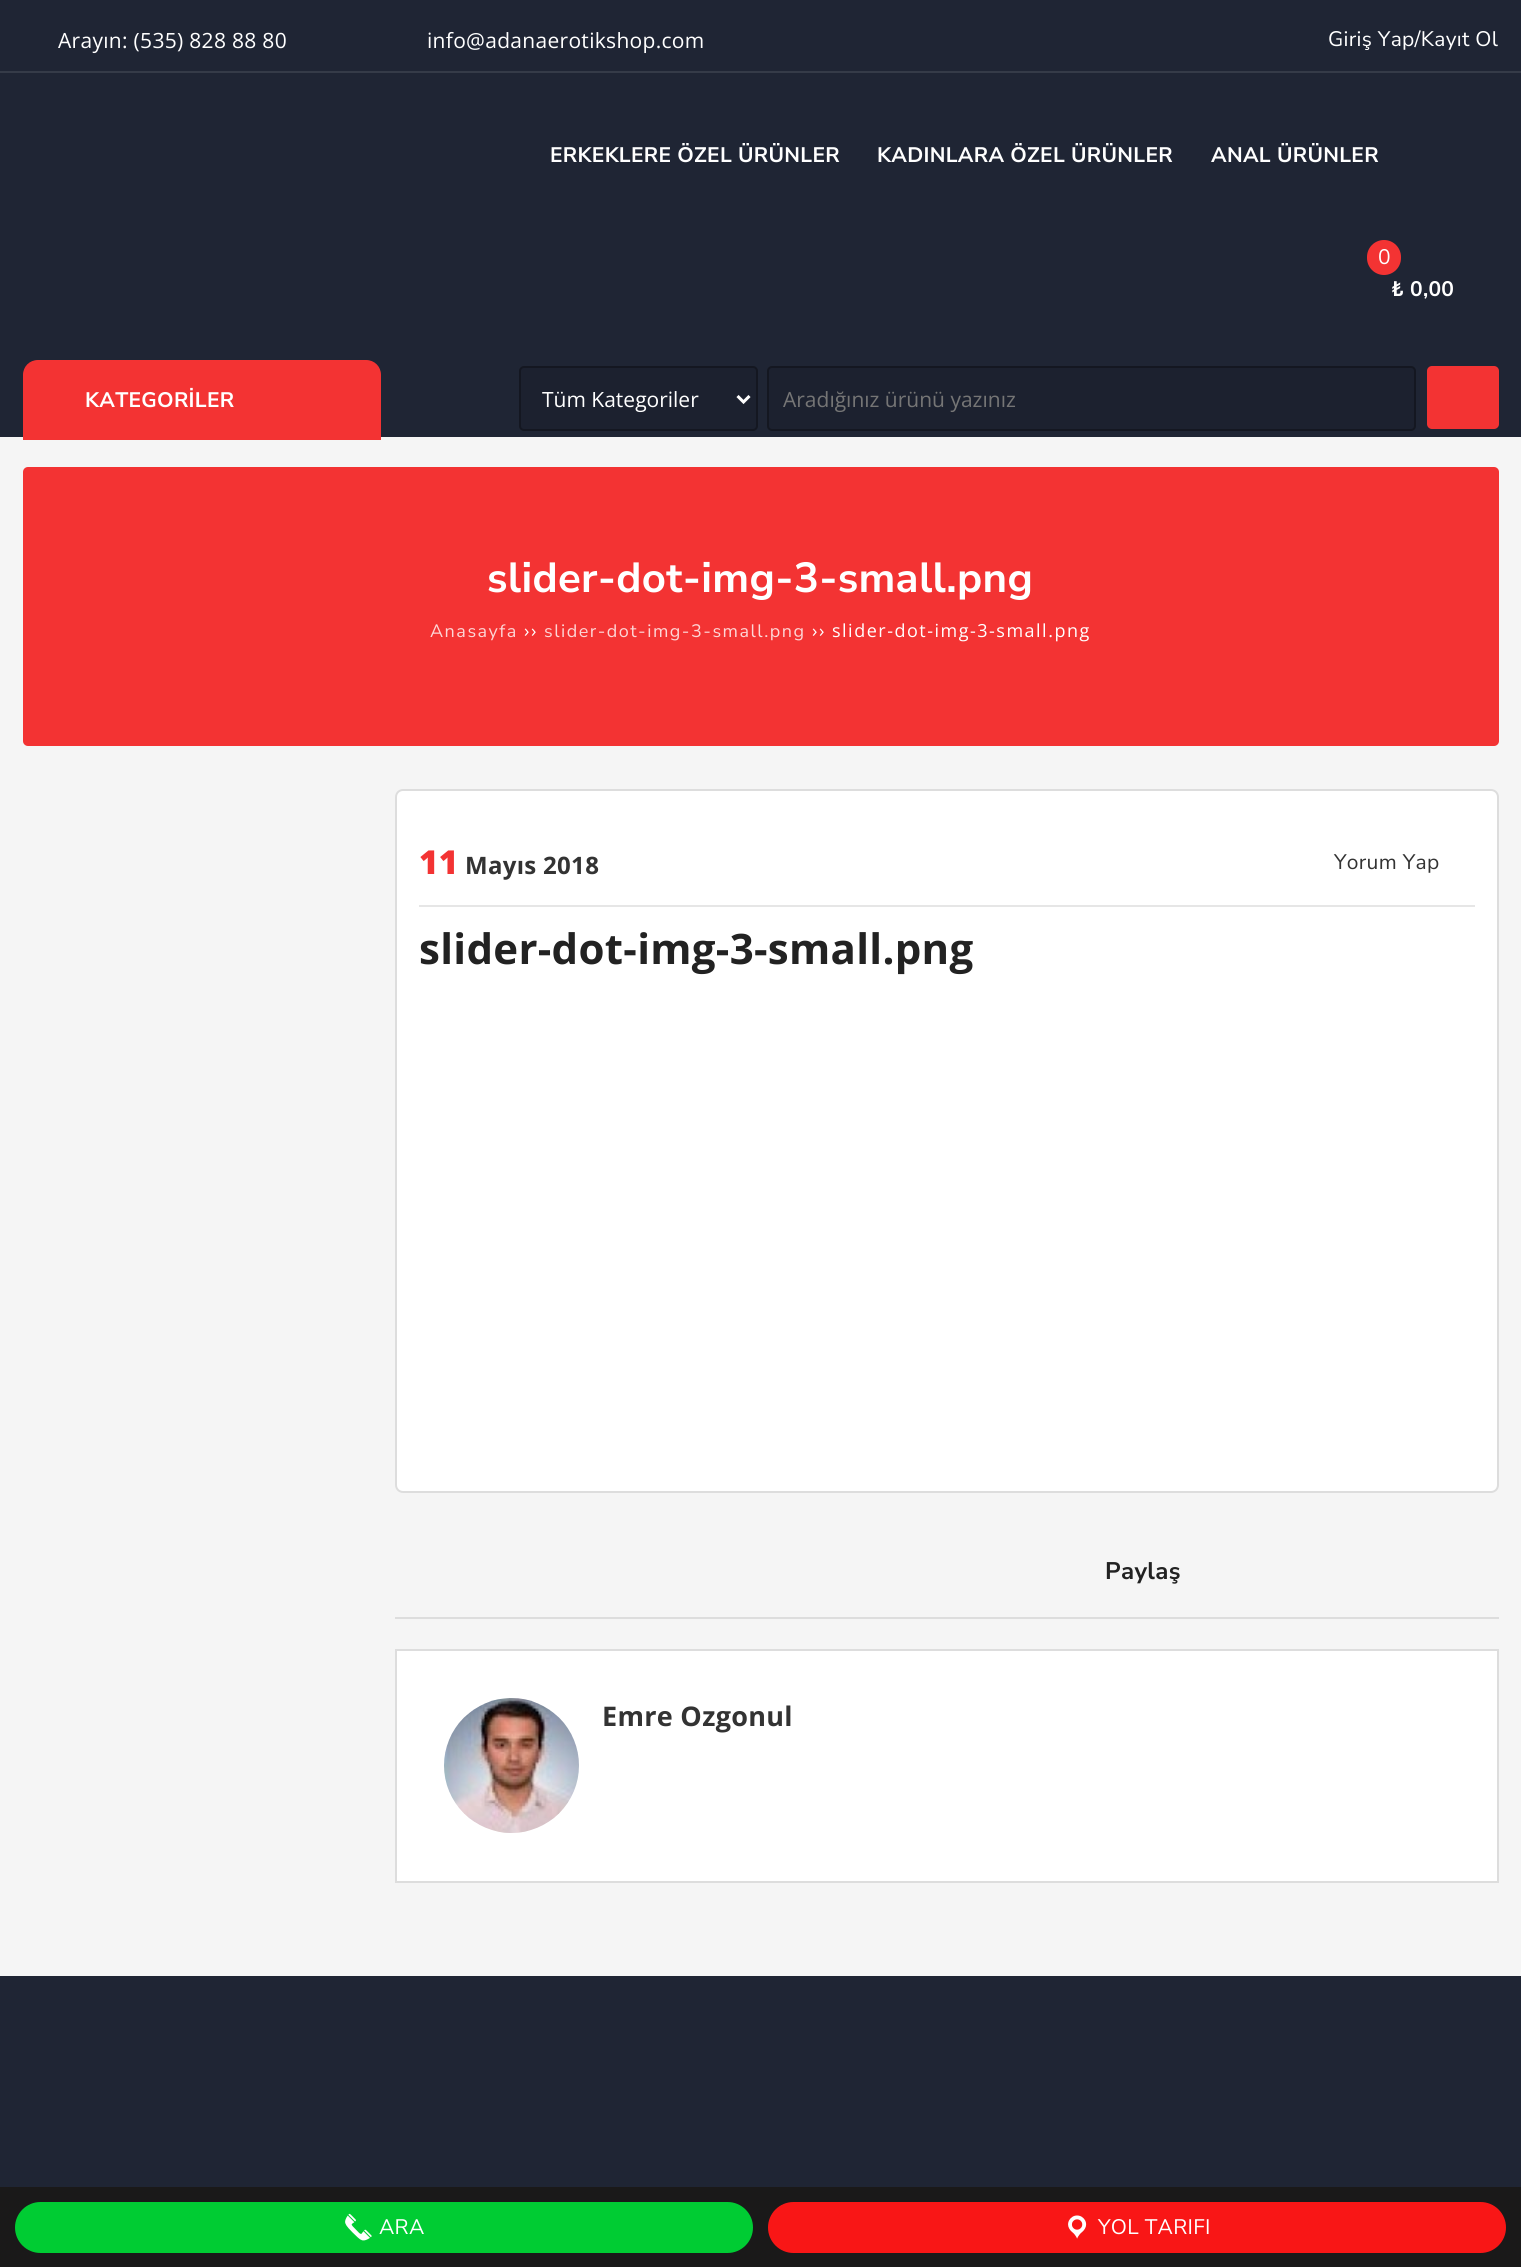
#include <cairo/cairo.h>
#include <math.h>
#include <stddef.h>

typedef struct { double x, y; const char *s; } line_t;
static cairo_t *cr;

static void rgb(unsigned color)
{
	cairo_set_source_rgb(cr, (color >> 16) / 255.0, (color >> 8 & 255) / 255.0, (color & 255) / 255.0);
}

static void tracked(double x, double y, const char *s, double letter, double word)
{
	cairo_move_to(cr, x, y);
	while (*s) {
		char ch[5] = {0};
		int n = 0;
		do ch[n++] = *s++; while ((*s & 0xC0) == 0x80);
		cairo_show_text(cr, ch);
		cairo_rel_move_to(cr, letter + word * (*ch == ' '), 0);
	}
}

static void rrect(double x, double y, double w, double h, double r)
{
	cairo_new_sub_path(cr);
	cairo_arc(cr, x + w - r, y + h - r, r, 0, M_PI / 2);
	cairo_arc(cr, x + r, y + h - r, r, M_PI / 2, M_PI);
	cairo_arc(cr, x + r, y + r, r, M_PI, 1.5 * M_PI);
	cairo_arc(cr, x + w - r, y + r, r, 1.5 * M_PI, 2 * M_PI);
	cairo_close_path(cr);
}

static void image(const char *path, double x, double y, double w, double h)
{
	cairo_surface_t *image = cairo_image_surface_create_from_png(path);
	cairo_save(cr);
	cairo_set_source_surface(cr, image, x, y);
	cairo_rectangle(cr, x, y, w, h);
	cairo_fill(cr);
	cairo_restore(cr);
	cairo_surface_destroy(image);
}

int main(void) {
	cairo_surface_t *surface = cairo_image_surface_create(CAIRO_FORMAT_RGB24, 1521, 2267);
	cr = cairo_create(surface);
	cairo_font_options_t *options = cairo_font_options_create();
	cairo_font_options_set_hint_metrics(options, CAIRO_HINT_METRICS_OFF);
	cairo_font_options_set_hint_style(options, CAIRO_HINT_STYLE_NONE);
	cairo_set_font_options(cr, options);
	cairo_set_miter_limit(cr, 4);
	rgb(0xf5f5f5);
	cairo_paint(cr);
	rgb(0x1f2534);
	cairo_rectangle(cr, 0, 0, 1521, 437);
	cairo_fill(cr);
	rgb(0x353b48);
	cairo_rectangle(cr, 0, 71, 1521, 2);
	cairo_fill(cr);
	rgb(0xf33333);
	rrect(1367, 240, 34, 35, 17);
	cairo_fill(cr);
	cairo_new_path(cr);
	cairo_move_to(cr, 38, 360);
	cairo_line_to(cr, 366, 360);
	cairo_curve_to(cr, 374.5, 360, 381, 366.5, 381, 375);
	cairo_line_to(cr, 381, 440);
	cairo_line_to(cr, 23, 440);
	cairo_line_to(cr, 23, 375);
	cairo_curve_to(cr, 23, 366.5, 29.5, 360, 38, 360);
	cairo_close_path(cr);
	cairo_fill(cr);
	cairo_set_source_rgba(cr, 0, 0, 0, 0.1);
	rrect(519, 366, 239, 65, 5);
	cairo_fill(cr);
	rrect(520, 367, 237, 63, 4);
	cairo_set_source_rgba(cr, 0, 0, 0, 0.3);
	cairo_stroke(cr);
	cairo_new_path(cr);
	cairo_move_to(cr, 737.5, 396);
	cairo_line_to(cr, 743.5, 402);
	cairo_line_to(cr, 749.5, 396);
	rgb(0xffffff);
	cairo_set_line_width(cr, 3);
	cairo_stroke(cr);
	cairo_set_source_rgba(cr, 0, 0, 0, 0.1);
	rrect(767, 366, 649, 65, 5);
	cairo_fill(cr);
	rrect(768, 367, 647, 63, 4);
	cairo_set_source_rgba(cr, 0, 0, 0, 0.3);
	cairo_set_line_width(cr, 2);
	cairo_stroke(cr);
	rgb(0xf33333);
	rrect(1427, 366, 72, 63, 5);
	cairo_fill(cr);
	rrect(23, 467, 1476, 279, 5);
	cairo_fill(cr);
	rgb(0xffffff);
	rrect(396, 790, 1102, 702, 7);
	cairo_fill_preserve(cr);
	rgb(0xdddddd);
	cairo_stroke(cr);
	rgb(0xe6e6e6);
	cairo_rectangle(cr, 419, 905, 1056, 2);
	cairo_fill(cr);
	rgb(0xdddddd);
	cairo_rectangle(cr, 395, 1617, 1104, 2);
	cairo_fill(cr);
	rgb(0xffffff);
	cairo_rectangle(cr, 396, 1650, 1102, 232);
	cairo_fill_preserve(cr);
	rgb(0xdddddd);
	cairo_stroke(cr);
	image("img/1.png", 444, 1698, 135, 135);
	rgb(0x1f2534);
	cairo_rectangle(cr, 0, 1976, 1521, 211);
	cairo_fill(cr);
	rgb(0x1a1919);
	cairo_rectangle(cr, 0, 2187, 1521, 80);
	cairo_fill(cr);
	rgb(0x00cc33);
	rrect(15, 2202, 738, 51, 25.5);
	cairo_fill(cr);
	image("img/2.png", 345, 2213, 27, 28);
	rgb(0xf91616);
	rrect(768, 2202, 738, 51, 25.5);
	cairo_fill(cr);
	image("img/3.png", 1068, 2215, 19, 24);
	cairo_select_font_face(cr, "Open Sans", CAIRO_FONT_SLANT_NORMAL, CAIRO_FONT_WEIGHT_NORMAL);
	cairo_set_font_size(cr, 21);
	rgb(0xffffff);
	tracked(58, 48, "Arayın: (535) 828 88 80", 0.3, 0);
	tracked(427, 48, "info@adanaerotikshop.com", 0.3, 0);
	cairo_select_font_face(cr, "Nunito Sans", CAIRO_FONT_SLANT_NORMAL, CAIRO_FONT_WEIGHT_NORMAL);
	tracked(1328, 46, "Giriş Yap/Kayıt Ol", 0.3, 0);
	cairo_select_font_face(cr, "Nunito Sans", CAIRO_FONT_SLANT_NORMAL, CAIRO_FONT_WEIGHT_BOLD);
	{
		static const line_t items[] = {
			{550, 162, "ERKEKLERE ÖZEL ÜRÜNLER"},
			{877, 162, "KADINLARA ÖZEL ÜRÜNLER"},
			{1211, 162, "ANAL ÜRÜNLER"},
		};
		for (size_t i = 0; i < sizeof items / sizeof *items; i++) {
			tracked(items[i].x, items[i].y, items[i].s, 0.3, 0);
		}
	}
	cairo_select_font_face(cr, "Nunito Sans", CAIRO_FONT_SLANT_NORMAL, CAIRO_FONT_WEIGHT_NORMAL);
	tracked(1378, 264, "0", 0.3, 0);
	cairo_select_font_face(cr, "Nunito Sans", CAIRO_FONT_SLANT_NORMAL, CAIRO_FONT_WEIGHT_BOLD);
	{
		static const line_t items[] = {
			{1391, 296, "₺"},
			{1410, 296, "0,00"},
			{85, 407, "KATEGORİLER"},
		};
		for (size_t i = 0; i < sizeof items / sizeof *items; i++) {
			tracked(items[i].x, items[i].y, items[i].s, 0.3, 0);
		}
	}
	cairo_select_font_face(cr, "Open Sans", CAIRO_FONT_SLANT_NORMAL, CAIRO_FONT_WEIGHT_NORMAL);
	cairo_move_to(cr, 542, 407);
	cairo_show_text(cr, "Tüm Kategoriler");
	rgb(0x757575);
	cairo_move_to(cr, 783, 407);
	cairo_show_text(cr, "Aradığınız ürünü yazınız");
	cairo_select_font_face(cr, "Nunito Sans", CAIRO_FONT_SLANT_NORMAL, CAIRO_FONT_WEIGHT_BOLD);
	cairo_set_font_size(cr, 42);
	rgb(0xffffff);
	tracked(487, 592, "slider-dot-img-3-small.png", 0.3, 0);
	cairo_select_font_face(cr, "Nunito Sans", CAIRO_FONT_SLANT_NORMAL, CAIRO_FONT_WEIGHT_NORMAL);
	cairo_set_font_size(cr, 18);
	rgb(0xfdd6d6);
	tracked(430, 637, "Anasayfa", 1.5, 0);
	cairo_select_font_face(cr, "Open Sans", CAIRO_FONT_SLANT_NORMAL, CAIRO_FONT_WEIGHT_NORMAL);
	rgb(0xffffff);
	tracked(524, 637, "››", 1.5, 0);
	cairo_select_font_face(cr, "Nunito Sans", CAIRO_FONT_SLANT_NORMAL, CAIRO_FONT_WEIGHT_NORMAL);
	rgb(0xfdd6d6);
	tracked(544, 637, "slider-dot-img-3-small.png", 1.5, 0);
	cairo_select_font_face(cr, "Open Sans", CAIRO_FONT_SLANT_NORMAL, CAIRO_FONT_WEIGHT_NORMAL);
	rgb(0xffffff);
	tracked(812, 637, "›› slider-dot-img-3-small.png", 1.5, 0);
	cairo_select_font_face(cr, "Open Sans ExtraBold", CAIRO_FONT_SLANT_NORMAL, CAIRO_FONT_WEIGHT_NORMAL);
	cairo_set_font_size(cr, 33);
	rgb(0xf33333);
	tracked(419, 874, "11", 0.3, 0);
	cairo_select_font_face(cr, "Open Sans", CAIRO_FONT_SLANT_NORMAL, CAIRO_FONT_WEIGHT_BOLD);
	cairo_set_font_size(cr, 24);
	rgb(0x333333);
	tracked(465, 874, "Mayıs 2018", 0.3, 0);
	cairo_select_font_face(cr, "Nunito Sans", CAIRO_FONT_SLANT_NORMAL, CAIRO_FONT_WEIGHT_NORMAL);
	cairo_set_font_size(cr, 21);
	tracked(1334, 869, "Yorum Yap", 0.3, 0);
	cairo_select_font_face(cr, "Open Sans", CAIRO_FONT_SLANT_NORMAL, CAIRO_FONT_WEIGHT_BOLD);
	cairo_set_font_size(cr, 42);
	rgb(0x222222);
	tracked(419, 964, "slider-dot-img-3-small.png", 0.3, 0);
	cairo_select_font_face(cr, "Nunito Sans", CAIRO_FONT_SLANT_NORMAL, CAIRO_FONT_WEIGHT_BOLD);
	cairo_set_font_size(cr, 24);
	tracked(1105, 1579, "Paylaş", 0.3, 0);
	cairo_select_font_face(cr, "Open Sans", CAIRO_FONT_SLANT_NORMAL, CAIRO_FONT_WEIGHT_BOLD);
	cairo_set_font_size(cr, 27);
	rgb(0x333333);
	tracked(602, 1726, "Emre Ozgonul", 0.3, 0);
	cairo_select_font_face(cr, "Nunito Sans", CAIRO_FONT_SLANT_NORMAL, CAIRO_FONT_WEIGHT_NORMAL);
	cairo_set_font_size(cr, 21);
	rgb(0xffffff);
	tracked(379, 2234, "ARA", 0.3, 0);
	tracked(1098, 2234, "YOL TARIFI", 0.3, 0);
	cairo_surface_write_to_png(surface, "page.png");
	cairo_font_options_destroy(options);
	cairo_destroy(cr);
	cairo_surface_destroy(surface);
	return 0;
}
